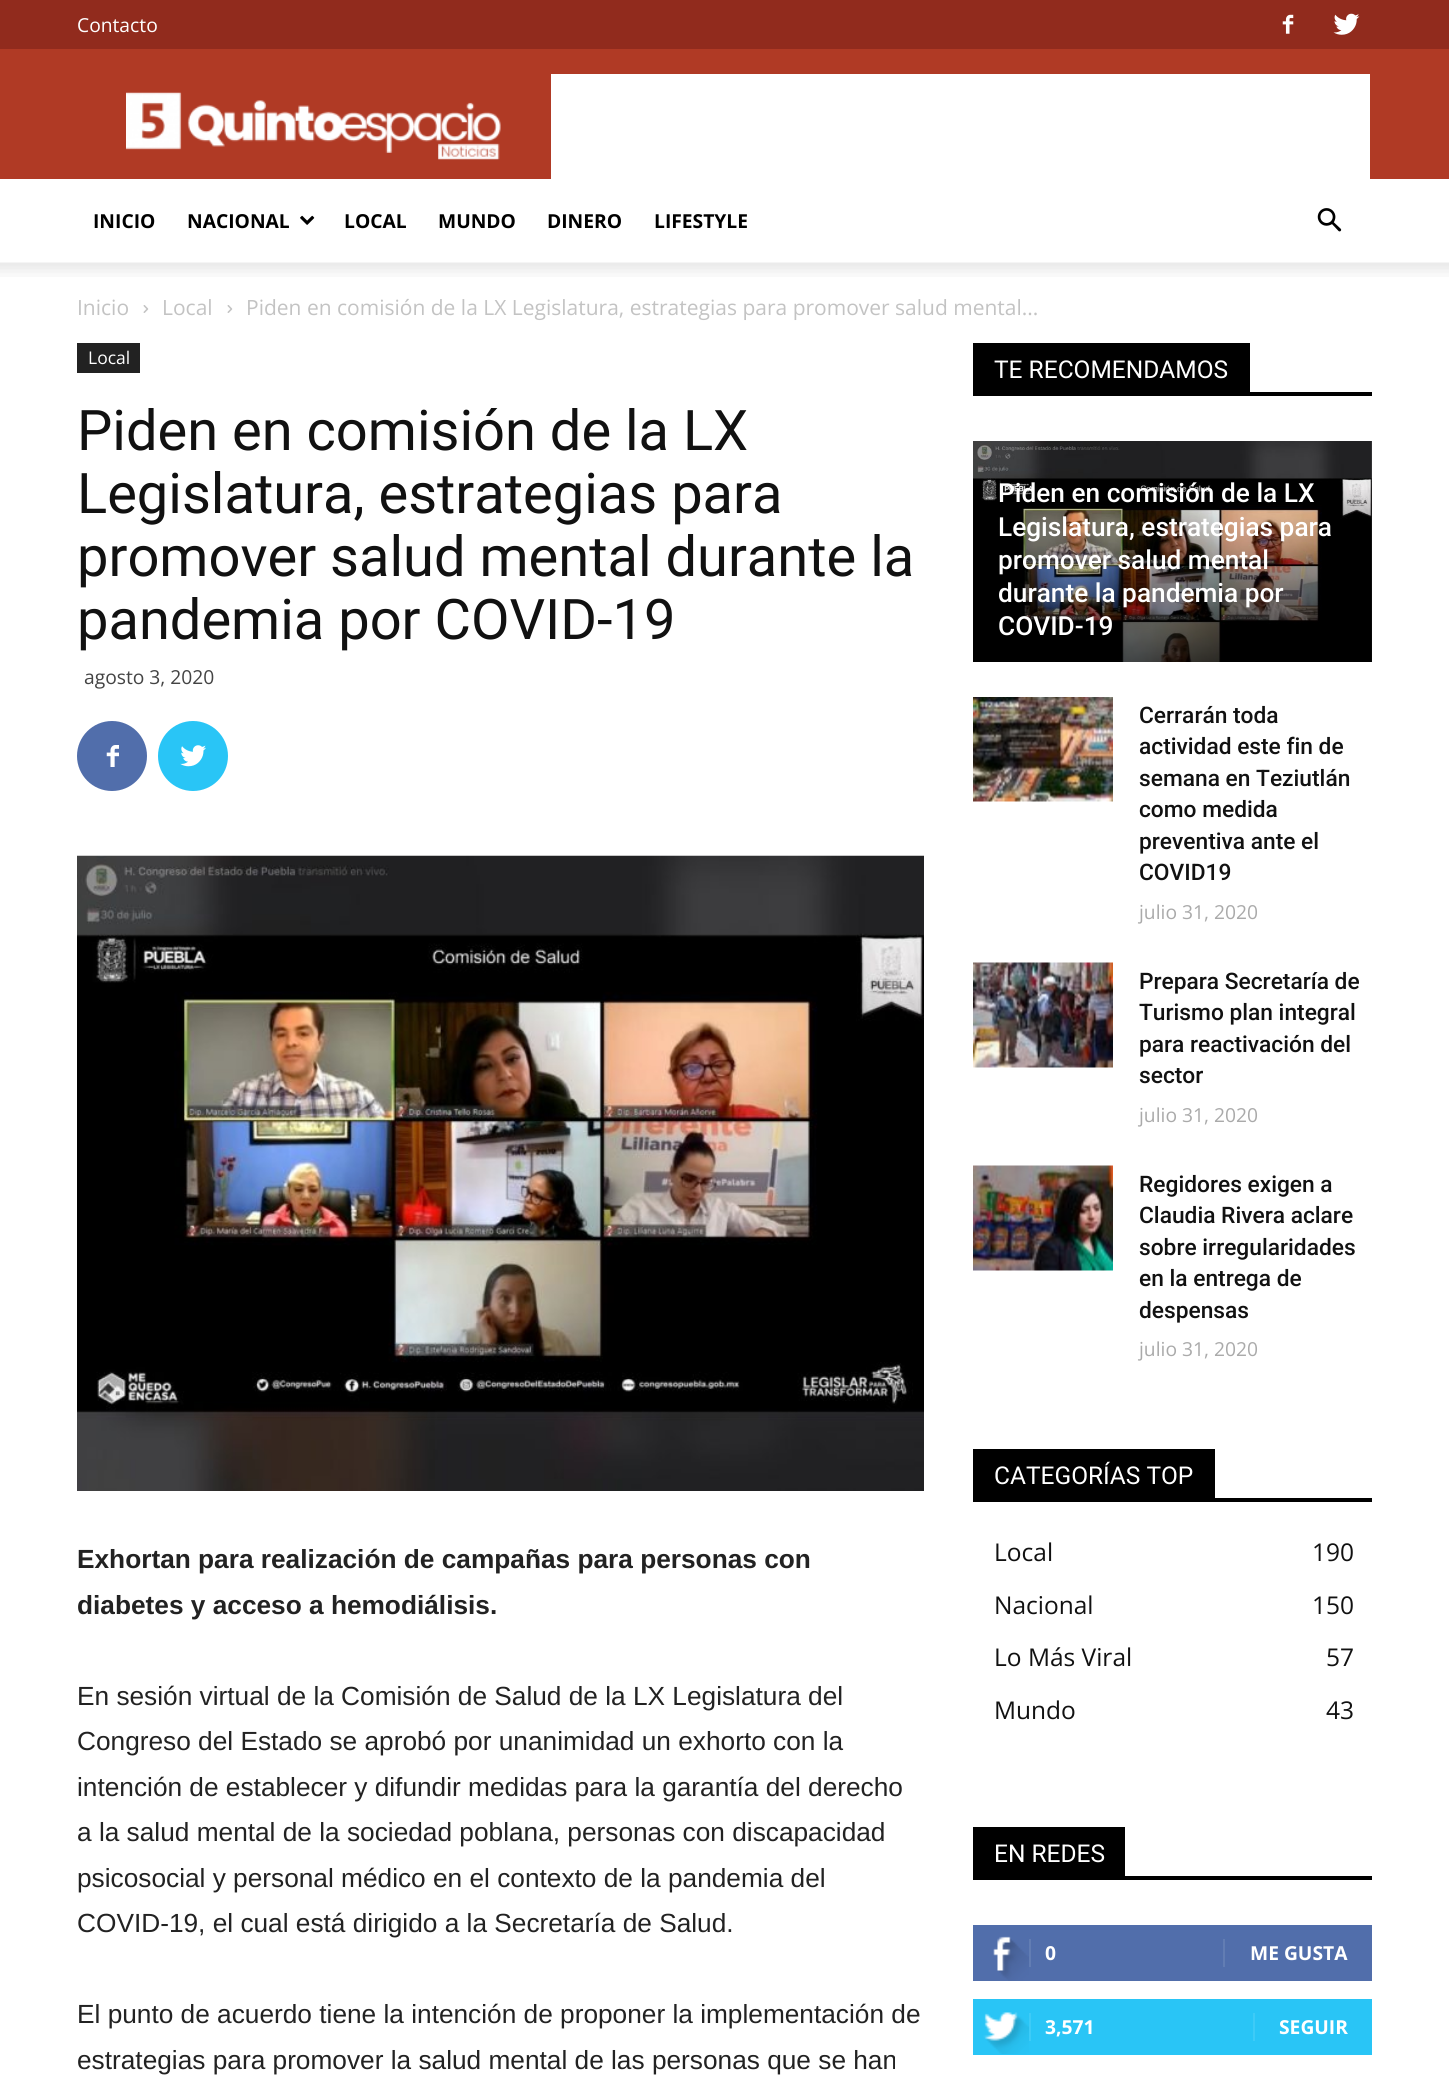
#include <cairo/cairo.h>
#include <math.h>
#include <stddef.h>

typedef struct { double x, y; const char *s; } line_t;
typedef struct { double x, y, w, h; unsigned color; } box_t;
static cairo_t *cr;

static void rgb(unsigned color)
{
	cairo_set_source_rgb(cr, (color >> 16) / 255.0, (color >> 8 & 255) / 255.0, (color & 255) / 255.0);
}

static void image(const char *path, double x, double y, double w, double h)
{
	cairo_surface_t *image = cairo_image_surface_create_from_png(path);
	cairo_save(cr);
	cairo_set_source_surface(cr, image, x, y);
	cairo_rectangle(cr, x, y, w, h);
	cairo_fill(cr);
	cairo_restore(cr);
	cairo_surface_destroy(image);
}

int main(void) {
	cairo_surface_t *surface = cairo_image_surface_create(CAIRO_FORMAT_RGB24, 1449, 2098);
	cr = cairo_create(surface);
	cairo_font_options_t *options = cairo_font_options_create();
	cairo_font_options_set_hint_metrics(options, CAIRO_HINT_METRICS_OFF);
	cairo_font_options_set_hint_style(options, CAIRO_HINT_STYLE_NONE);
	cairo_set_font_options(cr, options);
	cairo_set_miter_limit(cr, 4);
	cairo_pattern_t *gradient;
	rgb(0xffffff);
	cairo_paint(cr);
	rgb(0x912b1d);
	cairo_rectangle(cr, 0, 0, 1449, 49);
	cairo_fill(cr);
	image("img/1.png", 1282, 14, 12, 20);
	image("img/2.png", 1333, 13, 27, 22);
	rgb(0xb03a25);
	cairo_rectangle(cr, 0, 49, 1449, 130);
	cairo_fill(cr);
	image("img/3.png", 126, 92, 375, 68);
	rgb(0xffffff);
	cairo_rectangle(cr, 551, 74, 819, 105);
	cairo_fill(cr);
	image("img/4.png", 300, 215, 15, 10);
	image("img/5.png", 1317, 208, 25, 24);
	image("img/6.png", 0, 262, 1449, 15);
	image("img/7.png", 143, 305, 6, 8);
	image("img/7.png", 227, 305, 6, 8);
	rgb(0x222222);
	cairo_rectangle(cr, 77, 343, 63, 30);
	cairo_fill(cr);
	rgb(0x516eab);
	cairo_arc(cr, 112, 756, 35, 0, 2 * M_PI);
	cairo_fill(cr);
	image("img/8.png", 106, 745, 13, 22);
	rgb(0x29c5f6);
	cairo_arc(cr, 193, 756, 35, 0, 2 * M_PI);
	cairo_fill(cr);
	image("img/9.png", 180, 745, 26, 22);
	image("img/10.png", 77, 855, 847, 636);
	rgb(0x000000);
	cairo_rectangle(cr, 973, 392, 399, 4);
	cairo_fill(cr);
	cairo_rectangle(cr, 973, 343, 277, 49);
	cairo_fill(cr);
	image("img/11.png", 973, 441, 399, 221);
	gradient = cairo_pattern_create_linear(1173, 485, 1173, 662);
	cairo_pattern_add_color_stop_rgba(gradient, 0, 0, 0, 0, 0);
	cairo_pattern_add_color_stop_rgba(gradient, 1, 0, 0, 0, 0.7);
	cairo_set_source(cr, gradient);
	cairo_pattern_destroy(gradient);
	cairo_rectangle(cr, 983, 490, 389, 172);
	cairo_fill(cr);
	image("img/12.png", 973, 697, 140, 105);
	image("img/13.png", 973, 962, 140, 106);
	image("img/14.png", 973, 1165, 140, 106);
	{
		static const box_t items[] = {
			{973, 1498, 399, 4, 0x000000},
			{973, 1449, 242, 49, 0x000000},
			{973, 1876, 399, 4, 0x000000},
			{973, 1827, 152, 49, 0x000000},
			{973, 1925, 399, 56, 0x516eab},
		};
		for (size_t i = 0; i < sizeof items / sizeof *items; i++) {
			rgb(items[i].color);
			cairo_rectangle(cr, items[i].x, items[i].y, items[i].w, items[i].h);
			cairo_fill(cr);
		}
	}
	image("img/15.png", 993, 1936, 36, 45);
	{
		static const box_t items[] = {
			{1029, 1939, 2, 28, 0x627db3},
			{1223, 1939, 2, 28, 0x627db3},
			{973, 1999, 399, 56, 0x29c5f6},
		};
		for (size_t i = 0; i < sizeof items / sizeof *items; i++) {
			rgb(items[i].color);
			cairo_rectangle(cr, items[i].x, items[i].y, items[i].w, items[i].h);
			cairo_fill(cr);
		}
	}
	image("img/16.png", 983, 2012, 46, 42);
	rgb(0x3ecbf7);
	cairo_rectangle(cr, 1029, 2013, 2, 28);
	cairo_fill(cr);
	cairo_rectangle(cr, 1253, 2013, 2, 28);
	cairo_fill(cr);
	cairo_select_font_face(cr, "Open Sans", CAIRO_FONT_SLANT_NORMAL, CAIRO_FONT_WEIGHT_NORMAL);
	cairo_set_font_size(cr, 19.25);
	rgb(0xffffff);
	cairo_move_to(cr, 77, 32);
	cairo_show_text(cr, "Contacto");
	cairo_select_font_face(cr, "Open Sans", CAIRO_FONT_SLANT_NORMAL, CAIRO_FONT_WEIGHT_BOLD);
	rgb(0x000000);
	{
		static const line_t items[] = {
			{93, 228, "INICIO"},
			{187, 228, "NACIONAL"},
			{344, 228, "LOCAL"},
			{438, 228, "MUNDO"},
			{547, 228, "DINERO"},
			{654, 228, "LIFESTYLE"},
		};
		for (size_t i = 0; i < sizeof items / sizeof *items; i++) {
			cairo_move_to(cr, items[i].x, items[i].y);
			cairo_show_text(cr, items[i].s);
		}
	}
	cairo_select_font_face(cr, "Open Sans", CAIRO_FONT_SLANT_NORMAL, CAIRO_FONT_WEIGHT_NORMAL);
	cairo_set_font_size(cr, 21);
	rgb(0xc3c3c3);
	{
		static const line_t items[] = {
			{77, 315, "Inicio"},
			{162, 315, "Local"},
			{246, 315, "Piden en comisión de la LX Legislatura, estrategias para promover salud mental..."},
		};
		for (size_t i = 0; i < sizeof items / sizeof *items; i++) {
			cairo_move_to(cr, items[i].x, items[i].y);
			cairo_show_text(cr, items[i].s);
		}
	}
	cairo_set_font_size(cr, 17.5);
	rgb(0xffffff);
	cairo_move_to(cr, 88, 364);
	cairo_show_text(cr, "Local");
	cairo_select_font_face(cr, "Roboto", CAIRO_FONT_SLANT_NORMAL, CAIRO_FONT_WEIGHT_NORMAL);
	cairo_set_font_size(cr, 56);
	rgb(0x111111);
	{
		static const line_t items[] = {
			{77, 450, "Piden en comisión de la LX"},
			{77, 513, "Legislatura, estrategias para"},
			{77, 576, "promover salud mental durante la"},
			{77, 639, "pandemia por COVID-19"},
		};
		for (size_t i = 0; i < sizeof items / sizeof *items; i++) {
			cairo_move_to(cr, items[i].x, items[i].y);
			cairo_show_text(cr, items[i].s);
		}
	}
	cairo_select_font_face(cr, "Open Sans", CAIRO_FONT_SLANT_NORMAL, CAIRO_FONT_WEIGHT_NORMAL);
	cairo_set_font_size(cr, 19.25);
	rgb(0x444444);
	cairo_move_to(cr, 84, 684);
	cairo_show_text(cr, "agosto 3, 2020");
	cairo_select_font_face(cr, "Liberation Sans", CAIRO_FONT_SLANT_NORMAL, CAIRO_FONT_WEIGHT_BOLD);
	cairo_set_font_size(cr, 26.25);
	rgb(0x222222);
	cairo_move_to(cr, 77, 1568);
	cairo_show_text(cr, "Exhortan para realización de campañas para personas con");
	cairo_move_to(cr, 77, 1614);
	cairo_show_text(cr, "diabetes y acceso a hemodiálisis.");
	cairo_select_font_face(cr, "Liberation Sans", CAIRO_FONT_SLANT_NORMAL, CAIRO_FONT_WEIGHT_NORMAL);
	{
		static const line_t items[] = {
			{77, 1705, "En sesión virtual de la Comisión de Salud de la LX Legislatura del"},
			{77, 1750, "Congreso del Estado se aprobó por unanimidad un exhorto con la"},
			{77, 1796, "intención de establecer y difundir medidas para la garantía del derecho"},
			{77, 1841, "a la salud mental de la sociedad poblana, personas con discapacidad"},
			{77, 1887, "psicosocial y personal médico en el contexto de la pandemia del"},
			{77, 1932, "COVID-19, el cual está dirigido a la Secretaría de Salud."},
			{77, 2023, "El punto de acuerdo tiene la intención de proponer la implementación de"},
			{77, 2069, "estrategias para promover la salud mental de las personas que se han"},
		};
		for (size_t i = 0; i < sizeof items / sizeof *items; i++) {
			cairo_move_to(cr, items[i].x, items[i].y);
			cairo_show_text(cr, items[i].s);
		}
	}
	cairo_select_font_face(cr, "Roboto", CAIRO_FONT_SLANT_NORMAL, CAIRO_FONT_WEIGHT_NORMAL);
	cairo_set_font_size(cr, 24.5);
	rgb(0xffffff);
	cairo_move_to(cr, 994, 378);
	cairo_show_text(cr, "TE RECOMENDAMOS");
	cairo_select_font_face(cr, "Roboto Medium", CAIRO_FONT_SLANT_NORMAL, CAIRO_FONT_WEIGHT_NORMAL);
	cairo_set_font_size(cr, 26.25);
	{
		static const line_t items[] = {
			{998, 502, "Piden en comisión de la LX"},
			{998, 536, "Legislatura, estrategias para"},
			{998, 569, "promover salud mental"},
			{998, 602, "durante la pandemia por"},
			{998, 635, "COVID-19"},
		};
		for (size_t i = 0; i < sizeof items / sizeof *items; i++) {
			cairo_move_to(cr, items[i].x, items[i].y);
			cairo_show_text(cr, items[i].s);
		}
	}
	cairo_set_font_size(cr, 22.75);
	rgb(0x111111);
	{
		static const line_t items[] = {
			{1139, 723, "Cerrarán toda"},
			{1139, 754, "actividad este fin de"},
			{1139, 786, "semana en Teziutlán"},
			{1139, 817, "como medida"},
			{1139, 849, "preventiva ante el"},
			{1139, 880, "COVID19"},
		};
		for (size_t i = 0; i < sizeof items / sizeof *items; i++) {
			cairo_move_to(cr, items[i].x, items[i].y);
			cairo_show_text(cr, items[i].s);
		}
	}
	cairo_select_font_face(cr, "Open Sans", CAIRO_FONT_SLANT_NORMAL, CAIRO_FONT_WEIGHT_NORMAL);
	cairo_set_font_size(cr, 19.25);
	rgb(0xaaaaaa);
	cairo_move_to(cr, 1139, 919);
	cairo_show_text(cr, "julio 31, 2020");
	cairo_select_font_face(cr, "Roboto Medium", CAIRO_FONT_SLANT_NORMAL, CAIRO_FONT_WEIGHT_NORMAL);
	cairo_set_font_size(cr, 22.75);
	rgb(0x111111);
	{
		static const line_t items[] = {
			{1139, 989, "Prepara Secretaría de"},
			{1139, 1020, "Turismo plan integral"},
			{1139, 1052, "para reactivación del"},
			{1139, 1083, "sector"},
		};
		for (size_t i = 0; i < sizeof items / sizeof *items; i++) {
			cairo_move_to(cr, items[i].x, items[i].y);
			cairo_show_text(cr, items[i].s);
		}
	}
	cairo_select_font_face(cr, "Open Sans", CAIRO_FONT_SLANT_NORMAL, CAIRO_FONT_WEIGHT_NORMAL);
	cairo_set_font_size(cr, 19.25);
	rgb(0xaaaaaa);
	cairo_move_to(cr, 1139, 1122);
	cairo_show_text(cr, "julio 31, 2020");
	cairo_select_font_face(cr, "Roboto Medium", CAIRO_FONT_SLANT_NORMAL, CAIRO_FONT_WEIGHT_NORMAL);
	cairo_set_font_size(cr, 22.75);
	rgb(0x111111);
	{
		static const line_t items[] = {
			{1139, 1192, "Regidores exigen a"},
			{1139, 1223, "Claudia Rivera aclare"},
			{1139, 1255, "sobre irregularidades"},
			{1139, 1286, "en la entrega de"},
			{1139, 1318, "despensas"},
		};
		for (size_t i = 0; i < sizeof items / sizeof *items; i++) {
			cairo_move_to(cr, items[i].x, items[i].y);
			cairo_show_text(cr, items[i].s);
		}
	}
	cairo_select_font_face(cr, "Open Sans", CAIRO_FONT_SLANT_NORMAL, CAIRO_FONT_WEIGHT_NORMAL);
	cairo_set_font_size(cr, 19.25);
	rgb(0xaaaaaa);
	cairo_move_to(cr, 1139, 1356);
	cairo_show_text(cr, "julio 31, 2020");
	cairo_select_font_face(cr, "Roboto", CAIRO_FONT_SLANT_NORMAL, CAIRO_FONT_WEIGHT_NORMAL);
	cairo_set_font_size(cr, 24.5);
	rgb(0xffffff);
	cairo_move_to(cr, 994, 1484);
	cairo_show_text(cr, "CATEGORÍAS TOP");
	cairo_select_font_face(cr, "Open Sans", CAIRO_FONT_SLANT_NORMAL, CAIRO_FONT_WEIGHT_NORMAL);
	rgb(0x111111);
	{
		static const line_t items[] = {
			{994, 1561, "Local"},
			{1312, 1561, "190"},
			{994, 1614, "Nacional"},
			{1312, 1614, "150"},
			{994, 1666, "Lo Más Viral"},
			{1326, 1666, "57"},
			{994, 1719, "Mundo"},
			{1326, 1719, "43"},
		};
		for (size_t i = 0; i < sizeof items / sizeof *items; i++) {
			cairo_move_to(cr, items[i].x, items[i].y);
			cairo_show_text(cr, items[i].s);
		}
	}
	cairo_select_font_face(cr, "Roboto", CAIRO_FONT_SLANT_NORMAL, CAIRO_FONT_WEIGHT_NORMAL);
	rgb(0xffffff);
	cairo_move_to(cr, 994, 1862);
	cairo_show_text(cr, "EN REDES");
	cairo_select_font_face(cr, "Open Sans", CAIRO_FONT_SLANT_NORMAL, CAIRO_FONT_WEIGHT_BOLD);
	cairo_set_font_size(cr, 19.25);
	{
		static const line_t items[] = {
			{1045, 1960, "0"},
			{1250, 1960, "ME GUSTA"},
			{1045, 2034, "3,571"},
			{1279, 2034, "SEGUIR"},
		};
		for (size_t i = 0; i < sizeof items / sizeof *items; i++) {
			cairo_move_to(cr, items[i].x, items[i].y);
			cairo_show_text(cr, items[i].s);
		}
	}
	cairo_surface_write_to_png(surface, "page.png");
	cairo_font_options_destroy(options);
	cairo_destroy(cr);
	cairo_surface_destroy(surface);
	return 0;
}
